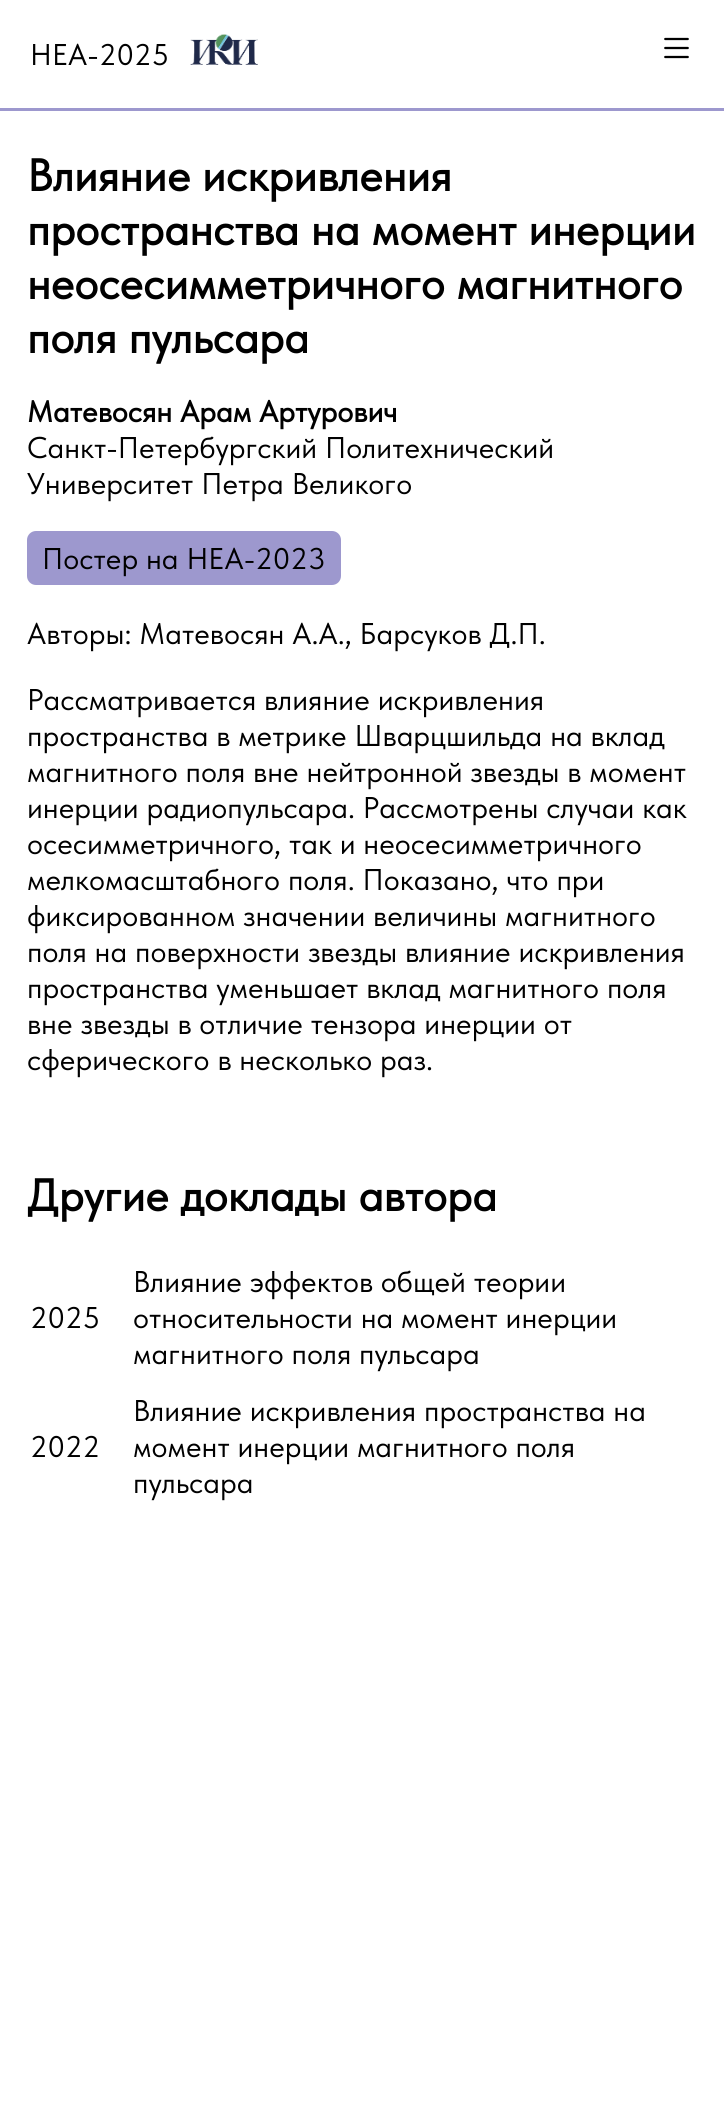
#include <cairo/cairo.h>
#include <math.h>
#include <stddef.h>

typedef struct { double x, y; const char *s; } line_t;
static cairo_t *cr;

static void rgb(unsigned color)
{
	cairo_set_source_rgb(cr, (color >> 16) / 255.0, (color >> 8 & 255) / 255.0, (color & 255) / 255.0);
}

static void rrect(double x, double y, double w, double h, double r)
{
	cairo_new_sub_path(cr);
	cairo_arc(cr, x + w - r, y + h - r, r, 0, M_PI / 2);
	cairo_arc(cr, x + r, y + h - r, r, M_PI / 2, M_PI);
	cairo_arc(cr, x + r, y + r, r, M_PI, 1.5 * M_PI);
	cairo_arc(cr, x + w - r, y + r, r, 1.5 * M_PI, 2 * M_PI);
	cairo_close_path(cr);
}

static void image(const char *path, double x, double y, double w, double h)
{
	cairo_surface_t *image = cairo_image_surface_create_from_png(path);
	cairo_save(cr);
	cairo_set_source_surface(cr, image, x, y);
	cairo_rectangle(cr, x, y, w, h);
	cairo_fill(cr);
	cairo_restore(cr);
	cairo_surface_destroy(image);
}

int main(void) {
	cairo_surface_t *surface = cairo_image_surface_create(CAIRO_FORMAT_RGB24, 724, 2117);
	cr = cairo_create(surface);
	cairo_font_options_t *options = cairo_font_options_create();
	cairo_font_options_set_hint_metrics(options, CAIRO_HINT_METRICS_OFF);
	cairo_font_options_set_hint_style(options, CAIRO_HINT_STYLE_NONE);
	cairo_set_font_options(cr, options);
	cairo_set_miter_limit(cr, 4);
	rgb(0xffffff);
	cairo_paint(cr);
	rgb(0x9d98ce);
	cairo_rectangle(cr, 0, 108, 724, 3);
	cairo_fill(cr);
	image("img/1.png", 190, 34, 68, 31);
	image("img/2.png", 664, 37, 25, 22);
	rrect(27, 531, 314, 54, 9);
	cairo_fill(cr);
	cairo_select_font_face(cr, "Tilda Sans", CAIRO_FONT_SLANT_NORMAL, CAIRO_FONT_WEIGHT_NORMAL);
	cairo_set_font_size(cr, 30);
	rgb(0x000000);
	cairo_move_to(cr, 30, 65);
	cairo_show_text(cr, "HEA-2025");
	cairo_select_font_face(cr, "Tilda Sans", CAIRO_FONT_SLANT_NORMAL, CAIRO_FONT_WEIGHT_BOLD);
	cairo_set_font_size(cr, 45);
	{
		static const line_t items[] = {
			{27, 191, "Влияние искривления"},
			{27, 245, "пространства на момент инерции"},
			{27, 299, "неосесимметричного магнитного"},
			{27, 353, "поля пульсара"},
		};
		for (size_t i = 0; i < sizeof items / sizeof *items; i++) {
			cairo_move_to(cr, items[i].x, items[i].y);
			cairo_show_text(cr, items[i].s);
		}
	}
	cairo_set_font_size(cr, 30);
	cairo_move_to(cr, 27, 422);
	cairo_show_text(cr, "Матевосян Арам Артурович");
	cairo_select_font_face(cr, "Tilda Sans", CAIRO_FONT_SLANT_NORMAL, CAIRO_FONT_WEIGHT_NORMAL);
	{
		static const line_t items[] = {
			{27, 458, "Санкт-Петербургский Политехнический"},
			{27, 494, "Университет Петра Великого"},
			{42, 569, "Постер на HEA-2023"},
			{27, 644, "Авторы: Матевосян А.А., Барсуков Д.П."},
			{27, 710, "Рассматривается влияние искривления"},
			{27, 746, "пространства в метрике Шварцшильда на вклад"},
			{27, 782, "магнитного поля вне нейтронной звезды в момент"},
			{27, 818, "инерции радиопульсара. Рассмотрены случаи как"},
			{27, 854, "осесимметричного, так и неосесимметричного"},
			{27, 890, "мелкомасштабного поля. Показано, что при"},
			{27, 926, "фиксированном значении величины магнитного"},
			{27, 962, "поля на поверхности звезды влияние искривления"},
			{27, 998, "пространства уменьшает вклад магнитного поля"},
			{27, 1034, "вне звезды в отличие тензора инерции от"},
			{27, 1070, "сферического в несколько раз."},
		};
		for (size_t i = 0; i < sizeof items / sizeof *items; i++) {
			cairo_move_to(cr, items[i].x, items[i].y);
			cairo_show_text(cr, items[i].s);
		}
	}
	cairo_select_font_face(cr, "Tilda Sans", CAIRO_FONT_SLANT_NORMAL, CAIRO_FONT_WEIGHT_BOLD);
	cairo_set_font_size(cr, 45);
	cairo_move_to(cr, 27, 1211);
	cairo_show_text(cr, "Другие доклады автора");
	cairo_select_font_face(cr, "Tilda Sans", CAIRO_FONT_SLANT_NORMAL, CAIRO_FONT_WEIGHT_NORMAL);
	cairo_set_font_size(cr, 30);
	{
		static const line_t items[] = {
			{30, 1328, "2025"},
			{133, 1292, "Влияние эффектов общей теории"},
			{133, 1328, "относительности на момент инерции"},
			{133, 1364, "магнитного поля пульсара"},
			{30, 1457, "2022"},
			{133, 1421, "Влияние искривления пространства на"},
			{133, 1457, "момент инерции магнитного поля"},
			{133, 1493, "пульсара"},
		};
		for (size_t i = 0; i < sizeof items / sizeof *items; i++) {
			cairo_move_to(cr, items[i].x, items[i].y);
			cairo_show_text(cr, items[i].s);
		}
	}
	cairo_surface_write_to_png(surface, "page.png");
	cairo_font_options_destroy(options);
	cairo_destroy(cr);
	cairo_surface_destroy(surface);
	return 0;
}
